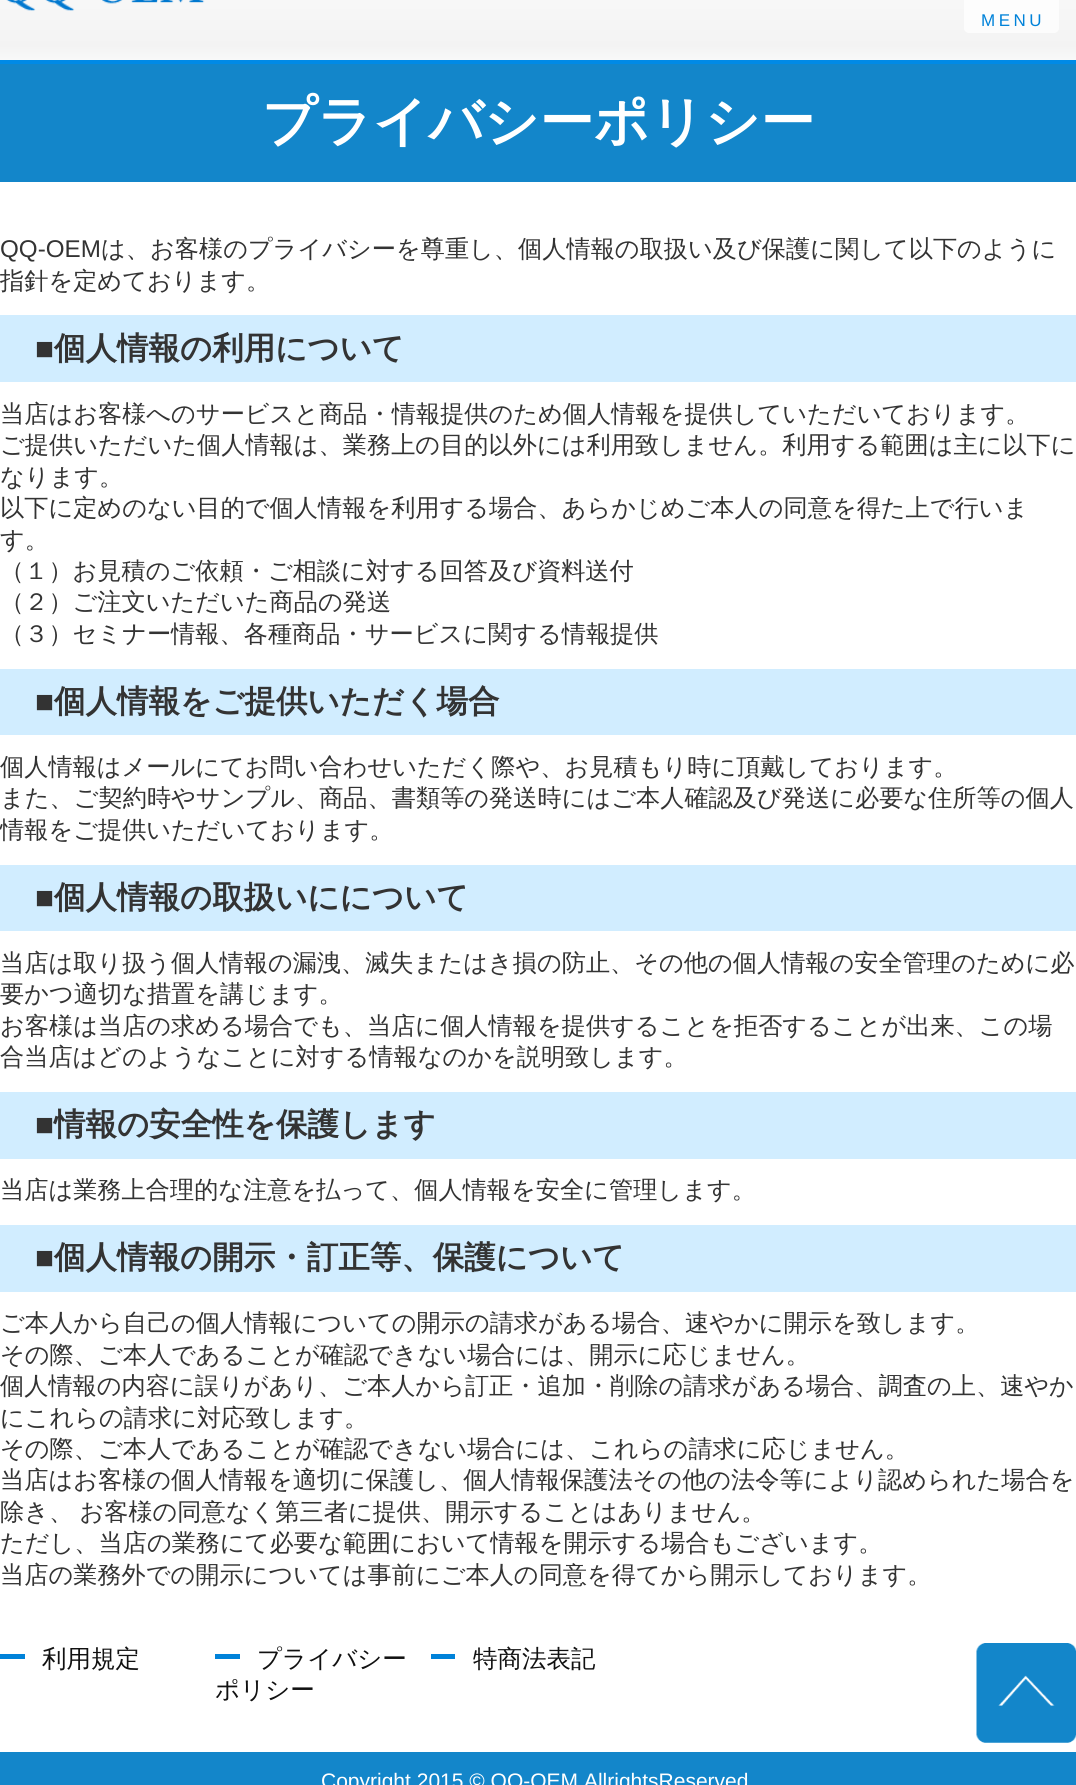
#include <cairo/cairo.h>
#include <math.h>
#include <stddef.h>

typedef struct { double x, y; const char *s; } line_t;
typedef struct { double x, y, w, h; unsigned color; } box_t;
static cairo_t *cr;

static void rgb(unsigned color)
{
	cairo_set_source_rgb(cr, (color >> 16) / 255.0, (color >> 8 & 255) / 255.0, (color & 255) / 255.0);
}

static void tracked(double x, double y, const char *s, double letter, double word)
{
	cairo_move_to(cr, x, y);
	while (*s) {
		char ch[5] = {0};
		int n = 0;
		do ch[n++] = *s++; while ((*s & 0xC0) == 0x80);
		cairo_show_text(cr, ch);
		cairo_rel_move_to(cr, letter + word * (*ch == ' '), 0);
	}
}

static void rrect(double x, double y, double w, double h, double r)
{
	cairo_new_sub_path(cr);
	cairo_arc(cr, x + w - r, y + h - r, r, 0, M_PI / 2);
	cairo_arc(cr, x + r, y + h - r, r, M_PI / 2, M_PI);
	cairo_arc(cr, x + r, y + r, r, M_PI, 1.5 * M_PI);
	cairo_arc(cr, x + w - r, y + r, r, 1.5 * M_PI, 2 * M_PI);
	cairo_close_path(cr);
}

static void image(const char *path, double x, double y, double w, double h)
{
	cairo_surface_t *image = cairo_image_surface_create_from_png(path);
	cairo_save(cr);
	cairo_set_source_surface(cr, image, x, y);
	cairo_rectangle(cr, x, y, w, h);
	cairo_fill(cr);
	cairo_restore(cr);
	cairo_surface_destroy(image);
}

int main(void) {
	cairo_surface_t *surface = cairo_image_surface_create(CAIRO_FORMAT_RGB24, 1076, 1785);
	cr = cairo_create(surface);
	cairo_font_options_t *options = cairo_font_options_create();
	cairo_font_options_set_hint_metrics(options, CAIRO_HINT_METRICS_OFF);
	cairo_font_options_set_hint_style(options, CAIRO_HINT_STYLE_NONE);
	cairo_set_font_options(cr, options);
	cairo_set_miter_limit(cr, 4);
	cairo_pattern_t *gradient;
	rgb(0xffffff);
	cairo_paint(cr);
	gradient = cairo_pattern_create_linear(538, -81, 538, 60);
	cairo_pattern_add_color_stop_rgba(gradient, 0, 1, 1, 1, 1);
	cairo_pattern_add_color_stop_rgba(gradient, 0.9, 0.953, 0.953, 0.953, 1);
	cairo_pattern_add_color_stop_rgba(gradient, 1, 0.973, 0.976, 0.976, 1);
	cairo_set_source(cr, gradient);
	cairo_pattern_destroy(gradient);
	cairo_rectangle(cr, 0, 0, 1076, 60);
	cairo_fill(cr);
	image("img/1.png", 6, 0, 199, 11);
	cairo_set_source_rgba(cr, 1, 1, 1, 0.75);
	rrect(964, -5, 95, 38, 5);
	cairo_fill(cr);
	{
		static const box_t items[] = {
			{0, 64, 1076, 118, 0x1386ca},
			{0, 60, 1076, 4, 0x008ae6},
			{0, 315, 1076, 67, 0xd1edff},
			{0, 669, 1076, 66, 0xd1edff},
			{0, 865, 1076, 66, 0xd1edff},
			{0, 1092, 1076, 67, 0xd1edff},
			{0, 1225, 1076, 67, 0xd1edff},
			{0, 1654, 25, 5, 0x0082d9},
			{215, 1654, 25, 5, 0x0082d9},
			{431, 1654, 24, 5, 0x0082d9},
		};
		for (size_t i = 0; i < sizeof items / sizeof *items; i++) {
			rgb(items[i].color);
			cairo_rectangle(cr, items[i].x, items[i].y, items[i].w, items[i].h);
			cairo_fill(cr);
		}
	}
	image("img/2.png", 976, 1643, 100, 100);
	rgb(0x1386ca);
	cairo_rectangle(cr, 0, 1752, 1076, 33);
	cairo_fill(cr);
	cairo_select_font_face(cr, "Liberation Sans", CAIRO_FONT_SLANT_NORMAL, CAIRO_FONT_WEIGHT_NORMAL);
	cairo_set_font_size(cr, 17);
	rgb(0x0082d9);
	tracked(981, 26, "MENU", 3.5, 0);
	cairo_select_font_face(cr, "WenQuanYi Zen Hei", CAIRO_FONT_SLANT_NORMAL, CAIRO_FONT_WEIGHT_BOLD);
	cairo_set_font_size(cr, 54.25);
	rgb(0xffffff);
	cairo_move_to(cr, 262, 140);
	cairo_show_text(cr, "プライバシーポリシー");
	cairo_select_font_face(cr, "Liberation Sans", CAIRO_FONT_SLANT_NORMAL, CAIRO_FONT_WEIGHT_NORMAL);
	cairo_set_font_size(cr, 24.2);
	rgb(0x333333);
	cairo_move_to(cr, 0, 257);
	cairo_show_text(cr, "QQ-OEM");
	cairo_select_font_face(cr, "WenQuanYi Zen Hei Medium", CAIRO_FONT_SLANT_NORMAL, CAIRO_FONT_WEIGHT_NORMAL);
	cairo_move_to(cr, 101, 257);
	cairo_show_text(cr, "は、お客様のプライバシーを尊重し、個人情報の取扱い及び保護に関して以下のように");
	cairo_move_to(cr, 0, 289);
	cairo_show_text(cr, "指針を定めております。");
	cairo_select_font_face(cr, "Liberation Sans", CAIRO_FONT_SLANT_NORMAL, CAIRO_FONT_WEIGHT_BOLD);
	cairo_set_font_size(cr, 31.5);
	cairo_move_to(cr, 35, 359);
	cairo_show_text(cr, "■");
	cairo_select_font_face(cr, "WenQuanYi Zen Hei", CAIRO_FONT_SLANT_NORMAL, CAIRO_FONT_WEIGHT_BOLD);
	cairo_move_to(cr, 54, 359);
	cairo_show_text(cr, "個人情報の利用について");
	cairo_select_font_face(cr, "WenQuanYi Zen Hei Medium", CAIRO_FONT_SLANT_NORMAL, CAIRO_FONT_WEIGHT_NORMAL);
	cairo_set_font_size(cr, 24.2);
	{
		static const line_t items[] = {
			{0, 422, "当店はお客様へのサービスと商品・情報提供のため個人情報を提供していただいております。"},
			{0, 453, "ご提供いただいた個人情報は、業務上の目的以外には利用致しません。利用する範囲は主に以下に"},
			{0, 485, "なります。"},
			{0, 516, "以下に定めのない目的で個人情報を利用する場合、あらかじめご本人の同意を得た上で行いま"},
			{0, 548, "す。"},
			{0, 579, "（１）お見積のご依頼・ご相談に対する回答及び資料送付"},
			{0, 610, "（２）ご注文いただいた商品の発送"},
			{0, 642, "（３）セミナー情報、各種商品・サービスに関する情報提供"},
		};
		for (size_t i = 0; i < sizeof items / sizeof *items; i++) {
			cairo_move_to(cr, items[i].x, items[i].y);
			cairo_show_text(cr, items[i].s);
		}
	}
	cairo_select_font_face(cr, "Liberation Sans", CAIRO_FONT_SLANT_NORMAL, CAIRO_FONT_WEIGHT_BOLD);
	cairo_set_font_size(cr, 31.5);
	cairo_move_to(cr, 35, 712);
	cairo_show_text(cr, "■");
	cairo_select_font_face(cr, "WenQuanYi Zen Hei", CAIRO_FONT_SLANT_NORMAL, CAIRO_FONT_WEIGHT_BOLD);
	cairo_move_to(cr, 54, 712);
	cairo_show_text(cr, "個人情報をご提供いただく場合");
	cairo_select_font_face(cr, "WenQuanYi Zen Hei Medium", CAIRO_FONT_SLANT_NORMAL, CAIRO_FONT_WEIGHT_NORMAL);
	cairo_set_font_size(cr, 24.2);
	{
		static const line_t items[] = {
			{0, 775, "個人情報はメールにてお問い合わせいただく際や、お見積もり時に頂戴しております。"},
			{0, 806, "また、ご契約時やサンプル、商品、書類等の発送時にはご本人確認及び発送に必要な住所等の個人"},
			{0, 838, "情報をご提供いただいております。"},
		};
		for (size_t i = 0; i < sizeof items / sizeof *items; i++) {
			cairo_move_to(cr, items[i].x, items[i].y);
			cairo_show_text(cr, items[i].s);
		}
	}
	cairo_select_font_face(cr, "Liberation Sans", CAIRO_FONT_SLANT_NORMAL, CAIRO_FONT_WEIGHT_BOLD);
	cairo_set_font_size(cr, 31.5);
	cairo_move_to(cr, 35, 908);
	cairo_show_text(cr, "■");
	cairo_select_font_face(cr, "WenQuanYi Zen Hei", CAIRO_FONT_SLANT_NORMAL, CAIRO_FONT_WEIGHT_BOLD);
	cairo_move_to(cr, 54, 908);
	cairo_show_text(cr, "個人情報の取扱いにについて");
	cairo_select_font_face(cr, "WenQuanYi Zen Hei Medium", CAIRO_FONT_SLANT_NORMAL, CAIRO_FONT_WEIGHT_NORMAL);
	cairo_set_font_size(cr, 24.2);
	{
		static const line_t items[] = {
			{0, 971, "当店は取り扱う個人情報の漏洩、滅失またはき損の防止、その他の個人情報の安全管理のために必"},
			{0, 1002, "要かつ適切な措置を講じます。"},
			{0, 1034, "お客様は当店の求める場合でも、当店に個人情報を提供することを拒否することが出来、この場"},
			{0, 1065, "合当店はどのようなことに対する情報なのかを説明致します。"},
		};
		for (size_t i = 0; i < sizeof items / sizeof *items; i++) {
			cairo_move_to(cr, items[i].x, items[i].y);
			cairo_show_text(cr, items[i].s);
		}
	}
	cairo_select_font_face(cr, "Liberation Sans", CAIRO_FONT_SLANT_NORMAL, CAIRO_FONT_WEIGHT_BOLD);
	cairo_set_font_size(cr, 31.5);
	cairo_move_to(cr, 35, 1135);
	cairo_show_text(cr, "■");
	cairo_select_font_face(cr, "WenQuanYi Zen Hei", CAIRO_FONT_SLANT_NORMAL, CAIRO_FONT_WEIGHT_BOLD);
	cairo_move_to(cr, 54, 1135);
	cairo_show_text(cr, "情報の安全性を保護します");
	cairo_select_font_face(cr, "WenQuanYi Zen Hei Medium", CAIRO_FONT_SLANT_NORMAL, CAIRO_FONT_WEIGHT_NORMAL);
	cairo_set_font_size(cr, 24.2);
	cairo_move_to(cr, 0, 1198);
	cairo_show_text(cr, "当店は業務上合理的な注意を払って、個人情報を安全に管理します。");
	cairo_select_font_face(cr, "Liberation Sans", CAIRO_FONT_SLANT_NORMAL, CAIRO_FONT_WEIGHT_BOLD);
	cairo_set_font_size(cr, 31.5);
	cairo_move_to(cr, 35, 1268);
	cairo_show_text(cr, "■");
	cairo_select_font_face(cr, "WenQuanYi Zen Hei", CAIRO_FONT_SLANT_NORMAL, CAIRO_FONT_WEIGHT_BOLD);
	cairo_move_to(cr, 54, 1268);
	cairo_show_text(cr, "個人情報の開示・訂正等、保護について");
	cairo_select_font_face(cr, "WenQuanYi Zen Hei Medium", CAIRO_FONT_SLANT_NORMAL, CAIRO_FONT_WEIGHT_NORMAL);
	cairo_set_font_size(cr, 24.2);
	{
		static const line_t items[] = {
			{0, 1331, "ご本人から自己の個人情報についての開示の請求がある場合、速やかに開示を致します。"},
			{0, 1363, "その際、ご本人であることが確認できない場合には、開示に応じません。"},
			{0, 1394, "個人情報の内容に誤りがあり、ご本人から訂正・追加・削除の請求がある場合、調査の上、速やか"},
			{0, 1426, "にこれらの請求に対応致します。"},
			{0, 1457, "その際、ご本人であることが確認できない場合には、これらの請求に応じません。"},
			{0, 1488, "当店はお客様の個人情報を適切に保護し、個人情報保護法その他の法令等により認められた場合を"},
		};
		for (size_t i = 0; i < sizeof items / sizeof *items; i++) {
			cairo_move_to(cr, items[i].x, items[i].y);
			cairo_show_text(cr, items[i].s);
		}
	}
	tracked(0, 1520, "除き、 お客様の同意なく第三者に提供、開示することはありません。", 0, -1);
	cairo_move_to(cr, 0, 1551);
	cairo_show_text(cr, "ただし、当店の業務にて必要な範囲において情報を開示する場合もございます。");
	cairo_move_to(cr, 0, 1583);
	cairo_show_text(cr, "当店の業務外での開示については事前にご本人の同意を得てから開示しております。");
	cairo_set_font_size(cr, 24.5);
	rgb(0x111111);
	{
		static const line_t items[] = {
			{42, 1667, "利用規定"},
			{257, 1667, "プライバシー"},
			{215, 1698, "ポリシー"},
			{473, 1667, "特商法表記"},
		};
		for (size_t i = 0; i < sizeof items / sizeof *items; i++) {
			cairo_move_to(cr, items[i].x, items[i].y);
			cairo_show_text(cr, items[i].s);
		}
	}
	cairo_select_font_face(cr, "Liberation Sans", CAIRO_FONT_SLANT_NORMAL, CAIRO_FONT_WEIGHT_NORMAL);
	cairo_set_font_size(cr, 21);
	rgb(0xffffff);
	cairo_move_to(cr, 321, 1788);
	cairo_show_text(cr, "Copyright 2015 © QQ-OEM AllrightsReserved");
	cairo_surface_write_to_png(surface, "page.png");
	cairo_font_options_destroy(options);
	cairo_destroy(cr);
	cairo_surface_destroy(surface);
	return 0;
}
